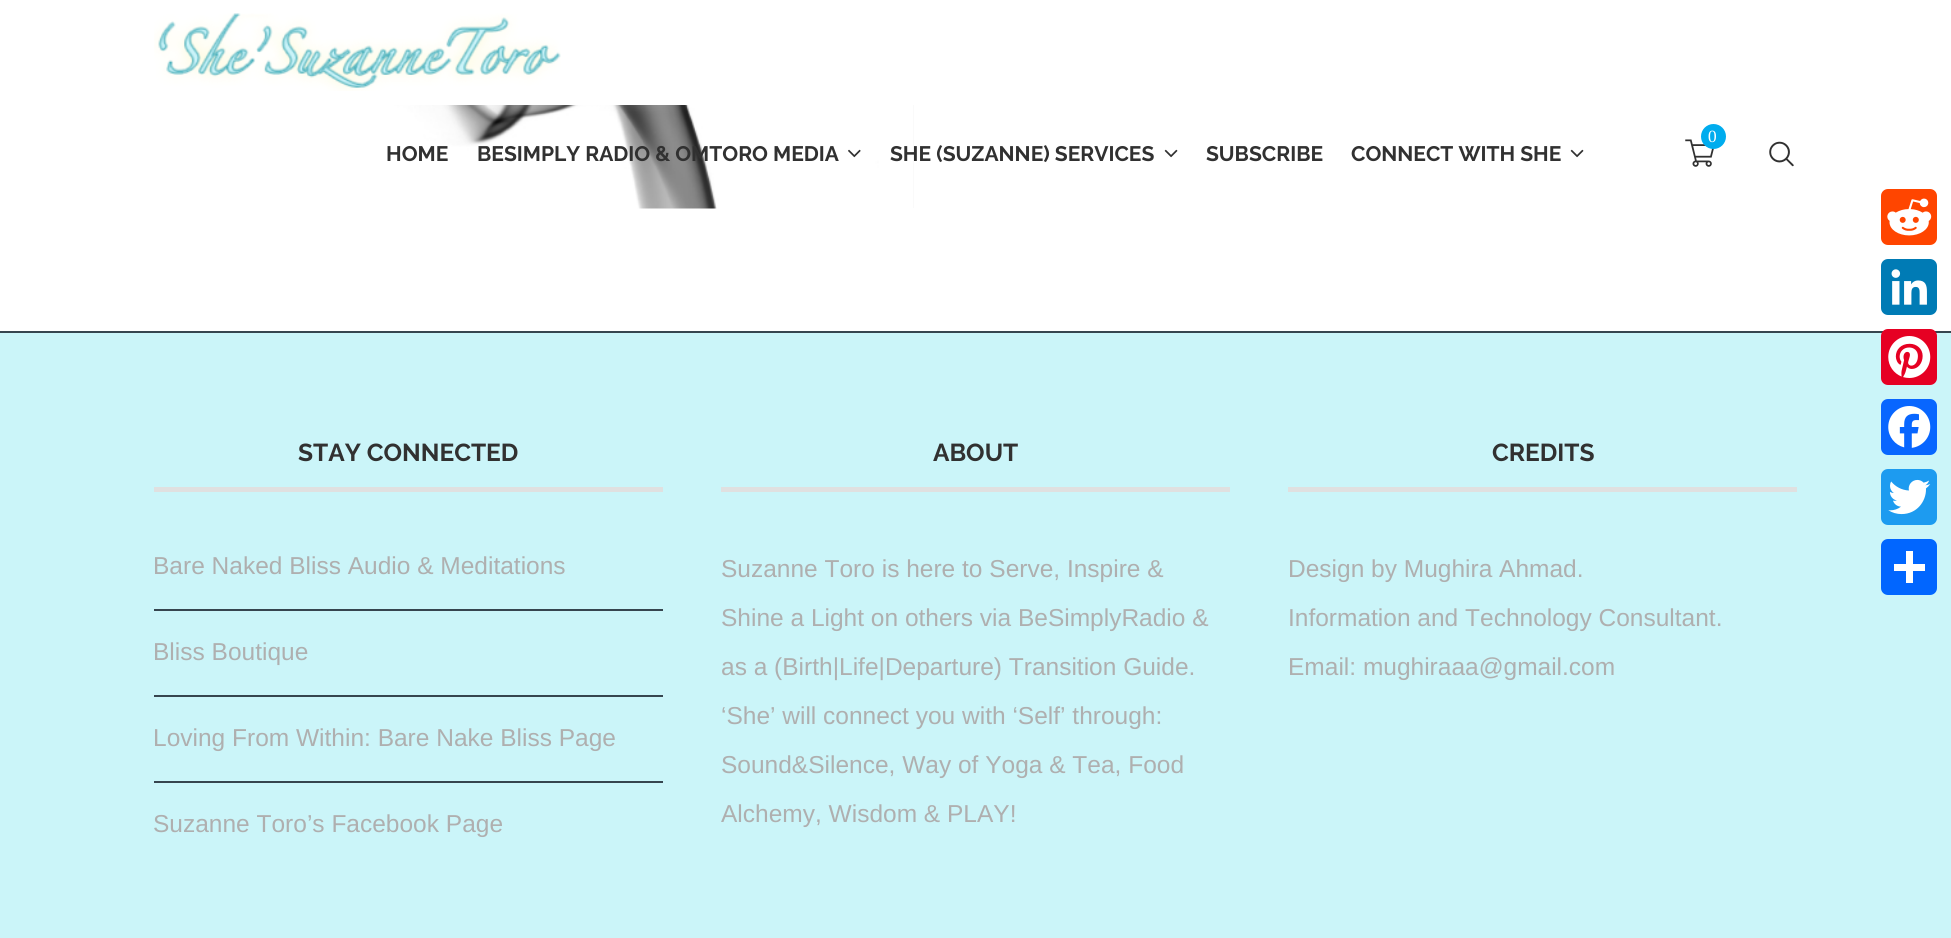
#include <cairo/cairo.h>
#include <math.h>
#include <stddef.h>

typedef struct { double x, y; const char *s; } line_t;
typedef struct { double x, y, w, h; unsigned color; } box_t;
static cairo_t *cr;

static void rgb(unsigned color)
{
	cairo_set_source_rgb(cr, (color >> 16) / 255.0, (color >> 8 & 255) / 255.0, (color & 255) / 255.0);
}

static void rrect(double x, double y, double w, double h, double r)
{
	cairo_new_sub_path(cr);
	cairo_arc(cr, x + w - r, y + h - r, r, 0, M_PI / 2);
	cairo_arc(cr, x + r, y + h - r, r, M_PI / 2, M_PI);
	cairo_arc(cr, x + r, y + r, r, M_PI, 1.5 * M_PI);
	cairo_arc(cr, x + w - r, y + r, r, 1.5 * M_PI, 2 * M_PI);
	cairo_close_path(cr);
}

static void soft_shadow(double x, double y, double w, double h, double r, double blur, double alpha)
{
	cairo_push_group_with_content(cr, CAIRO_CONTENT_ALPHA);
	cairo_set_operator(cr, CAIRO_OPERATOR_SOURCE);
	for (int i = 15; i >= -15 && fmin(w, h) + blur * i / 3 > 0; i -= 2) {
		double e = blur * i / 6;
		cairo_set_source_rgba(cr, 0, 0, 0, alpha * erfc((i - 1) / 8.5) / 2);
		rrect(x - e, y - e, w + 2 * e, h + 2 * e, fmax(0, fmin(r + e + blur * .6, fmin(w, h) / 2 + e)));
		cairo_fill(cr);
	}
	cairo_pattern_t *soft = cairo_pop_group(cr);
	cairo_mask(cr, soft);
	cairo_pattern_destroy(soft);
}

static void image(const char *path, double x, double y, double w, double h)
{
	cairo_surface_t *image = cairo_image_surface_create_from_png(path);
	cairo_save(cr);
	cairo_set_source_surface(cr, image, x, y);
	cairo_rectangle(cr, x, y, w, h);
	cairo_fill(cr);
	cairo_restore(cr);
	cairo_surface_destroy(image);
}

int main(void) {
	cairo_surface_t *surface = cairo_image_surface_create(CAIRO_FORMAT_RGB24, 1951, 938);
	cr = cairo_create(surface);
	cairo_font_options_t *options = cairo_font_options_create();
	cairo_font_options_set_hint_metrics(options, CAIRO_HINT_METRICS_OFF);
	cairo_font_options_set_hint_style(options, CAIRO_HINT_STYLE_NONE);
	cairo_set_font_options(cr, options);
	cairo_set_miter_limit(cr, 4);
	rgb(0xffffff);
	cairo_paint(cr);
	rgb(0xf5f5f5);
	cairo_rectangle(cr, 913, 105, 1, 103);
	cairo_fill(cr);
	image("img/1.png", 154, 105, 760, 104);
	rgb(0xffffff);
	soft_shadow(0, 2, 1951, 105, 0, 4.5, 0.08);
	image("img/2.png", 154, 13, 407, 78);
	image("img/3.png", 1685, 139, 29, 28);
	rgb(0x00acee);
	cairo_arc(cr, 1713.5, 136.5, 12.5, 0, 2 * M_PI);
	cairo_fill(cr);
	image("img/4.png", 848, 149, 13, 9);
	image("img/5.png", 1164, 149, 14, 9);
	image("img/5.png", 1570, 149, 14, 9);
	image("img/6.png", 1769, 141, 25, 26);
	{
		static const box_t items[] = {
			{0, 333, 1951, 605, 0xcbf5f9},
			{0, 331, 1951, 2, 0x36454f},
			{154, 487, 509, 5, 0xe0e0e0},
			{154, 609, 509, 2, 0x36454f},
			{154, 695, 509, 2, 0x36454f},
			{154, 781, 509, 2, 0x36454f},
			{721, 487, 509, 5, 0xe0e0e0},
			{1288, 487, 509, 5, 0xe0e0e0},
		};
		for (size_t i = 0; i < sizeof items / sizeof *items; i++) {
			rgb(items[i].color);
			cairo_rectangle(cr, items[i].x, items[i].y, items[i].w, items[i].h);
			cairo_fill(cr);
		}
	}
	rgb(0xff4500);
	rrect(1881, 189, 56, 56, 7);
	cairo_fill(cr);
	image("img/7.png", 1887, 198, 45, 38);
	rgb(0x007bb5);
	rrect(1881, 259, 56, 56, 7);
	cairo_fill(cr);
	image("img/8.png", 1891, 269, 36, 36);
	rgb(0xe60023);
	rrect(1881, 329, 56, 56, 7);
	cairo_fill(cr);
	image("img/9.png", 1888, 336, 43, 42);
	rgb(0x0866ff);
	rrect(1881, 399, 56, 56, 7);
	cairo_fill(cr);
	image("img/10.png", 1888, 406, 43, 42);
	rgb(0x1d9bf0);
	rrect(1881, 469, 56, 56, 7);
	cairo_fill(cr);
	image("img/11.png", 1888, 479, 43, 36);
	rgb(0x0166ff);
	rrect(1881, 539, 56, 56, 7);
	cairo_fill(cr);
	rgb(0xffffff);
	cairo_rectangle(cr, 1906, 551, 7, 32);
	cairo_fill(cr);
	cairo_rectangle(cr, 1894, 564, 31, 7);
	cairo_fill(cr);
	cairo_select_font_face(cr, "PT Serif", CAIRO_FONT_SLANT_NORMAL, CAIRO_FONT_WEIGHT_NORMAL);
	cairo_set_font_size(cr, 16);
	cairo_move_to(cr, 1708, 142);
	cairo_show_text(cr, "0");
	cairo_select_font_face(cr, "Raleway", CAIRO_FONT_SLANT_NORMAL, CAIRO_FONT_WEIGHT_BOLD);
	cairo_set_font_size(cr, 21);
	rgb(0x313131);
	{
		static const line_t items[] = {
			{386, 161, "HOME"},
			{477, 161, "BESIMPLY RADIO & OMTORO MEDIA"},
			{890, 161, "SHE (SUZANNE) SERVICES"},
			{1206, 161, "SUBSCRIBE"},
			{1351, 161, "CONNECT WITH SHE"},
		};
		for (size_t i = 0; i < sizeof items / sizeof *items; i++) {
			cairo_move_to(cr, items[i].x, items[i].y);
			cairo_show_text(cr, items[i].s);
		}
	}
	cairo_set_font_size(cr, 24.5);
	cairo_move_to(cr, 298, 461);
	cairo_show_text(cr, "STAY CONNECTED");
	cairo_select_font_face(cr, "Liberation Sans", CAIRO_FONT_SLANT_NORMAL, CAIRO_FONT_WEIGHT_NORMAL);
	rgb(0xafafaf);
	{
		static const line_t items[] = {
			{153, 574, "Bare Naked Bliss Audio & Meditations"},
			{153, 660, "Bliss Boutique"},
			{153, 746, "Loving From Within: Bare Nake Bliss Page"},
			{153, 832, "Suzanne Toro’s Facebook Page"},
		};
		for (size_t i = 0; i < sizeof items / sizeof *items; i++) {
			cairo_move_to(cr, items[i].x, items[i].y);
			cairo_show_text(cr, items[i].s);
		}
	}
	cairo_select_font_face(cr, "Raleway", CAIRO_FONT_SLANT_NORMAL, CAIRO_FONT_WEIGHT_BOLD);
	rgb(0x313131);
	cairo_move_to(cr, 933, 461);
	cairo_show_text(cr, "ABOUT");
	cairo_select_font_face(cr, "Liberation Sans", CAIRO_FONT_SLANT_NORMAL, CAIRO_FONT_WEIGHT_NORMAL);
	rgb(0xafafaf);
	{
		static const line_t items[] = {
			{721, 577, "Suzanne Toro is here to Serve, Inspire &"},
			{721, 626, "Shine a Light on others via BeSimplyRadio &"},
			{721, 675, "as a (Birth|Life|Departure) Transition Guide."},
			{721, 724, "‘She’ will connect you with ‘Self’ through:"},
			{721, 773, "Sound&Silence, Way of Yoga & Tea, Food"},
			{721, 822, "Alchemy, Wisdom & PLAY!"},
		};
		for (size_t i = 0; i < sizeof items / sizeof *items; i++) {
			cairo_move_to(cr, items[i].x, items[i].y);
			cairo_show_text(cr, items[i].s);
		}
	}
	cairo_select_font_face(cr, "Raleway", CAIRO_FONT_SLANT_NORMAL, CAIRO_FONT_WEIGHT_BOLD);
	rgb(0x313131);
	cairo_move_to(cr, 1492, 461);
	cairo_show_text(cr, "CREDITS");
	cairo_select_font_face(cr, "Liberation Sans", CAIRO_FONT_SLANT_NORMAL, CAIRO_FONT_WEIGHT_NORMAL);
	rgb(0xafafaf);
	{
		static const line_t items[] = {
			{1288, 577, "Design by Mughira Ahmad."},
			{1288, 626, "Information and Technology Consultant."},
			{1288, 675, "Email: mughiraaa@gmail.com"},
		};
		for (size_t i = 0; i < sizeof items / sizeof *items; i++) {
			cairo_move_to(cr, items[i].x, items[i].y);
			cairo_show_text(cr, items[i].s);
		}
	}
	cairo_surface_write_to_png(surface, "page.png");
	cairo_font_options_destroy(options);
	cairo_destroy(cr);
	cairo_surface_destroy(surface);
	return 0;
}
